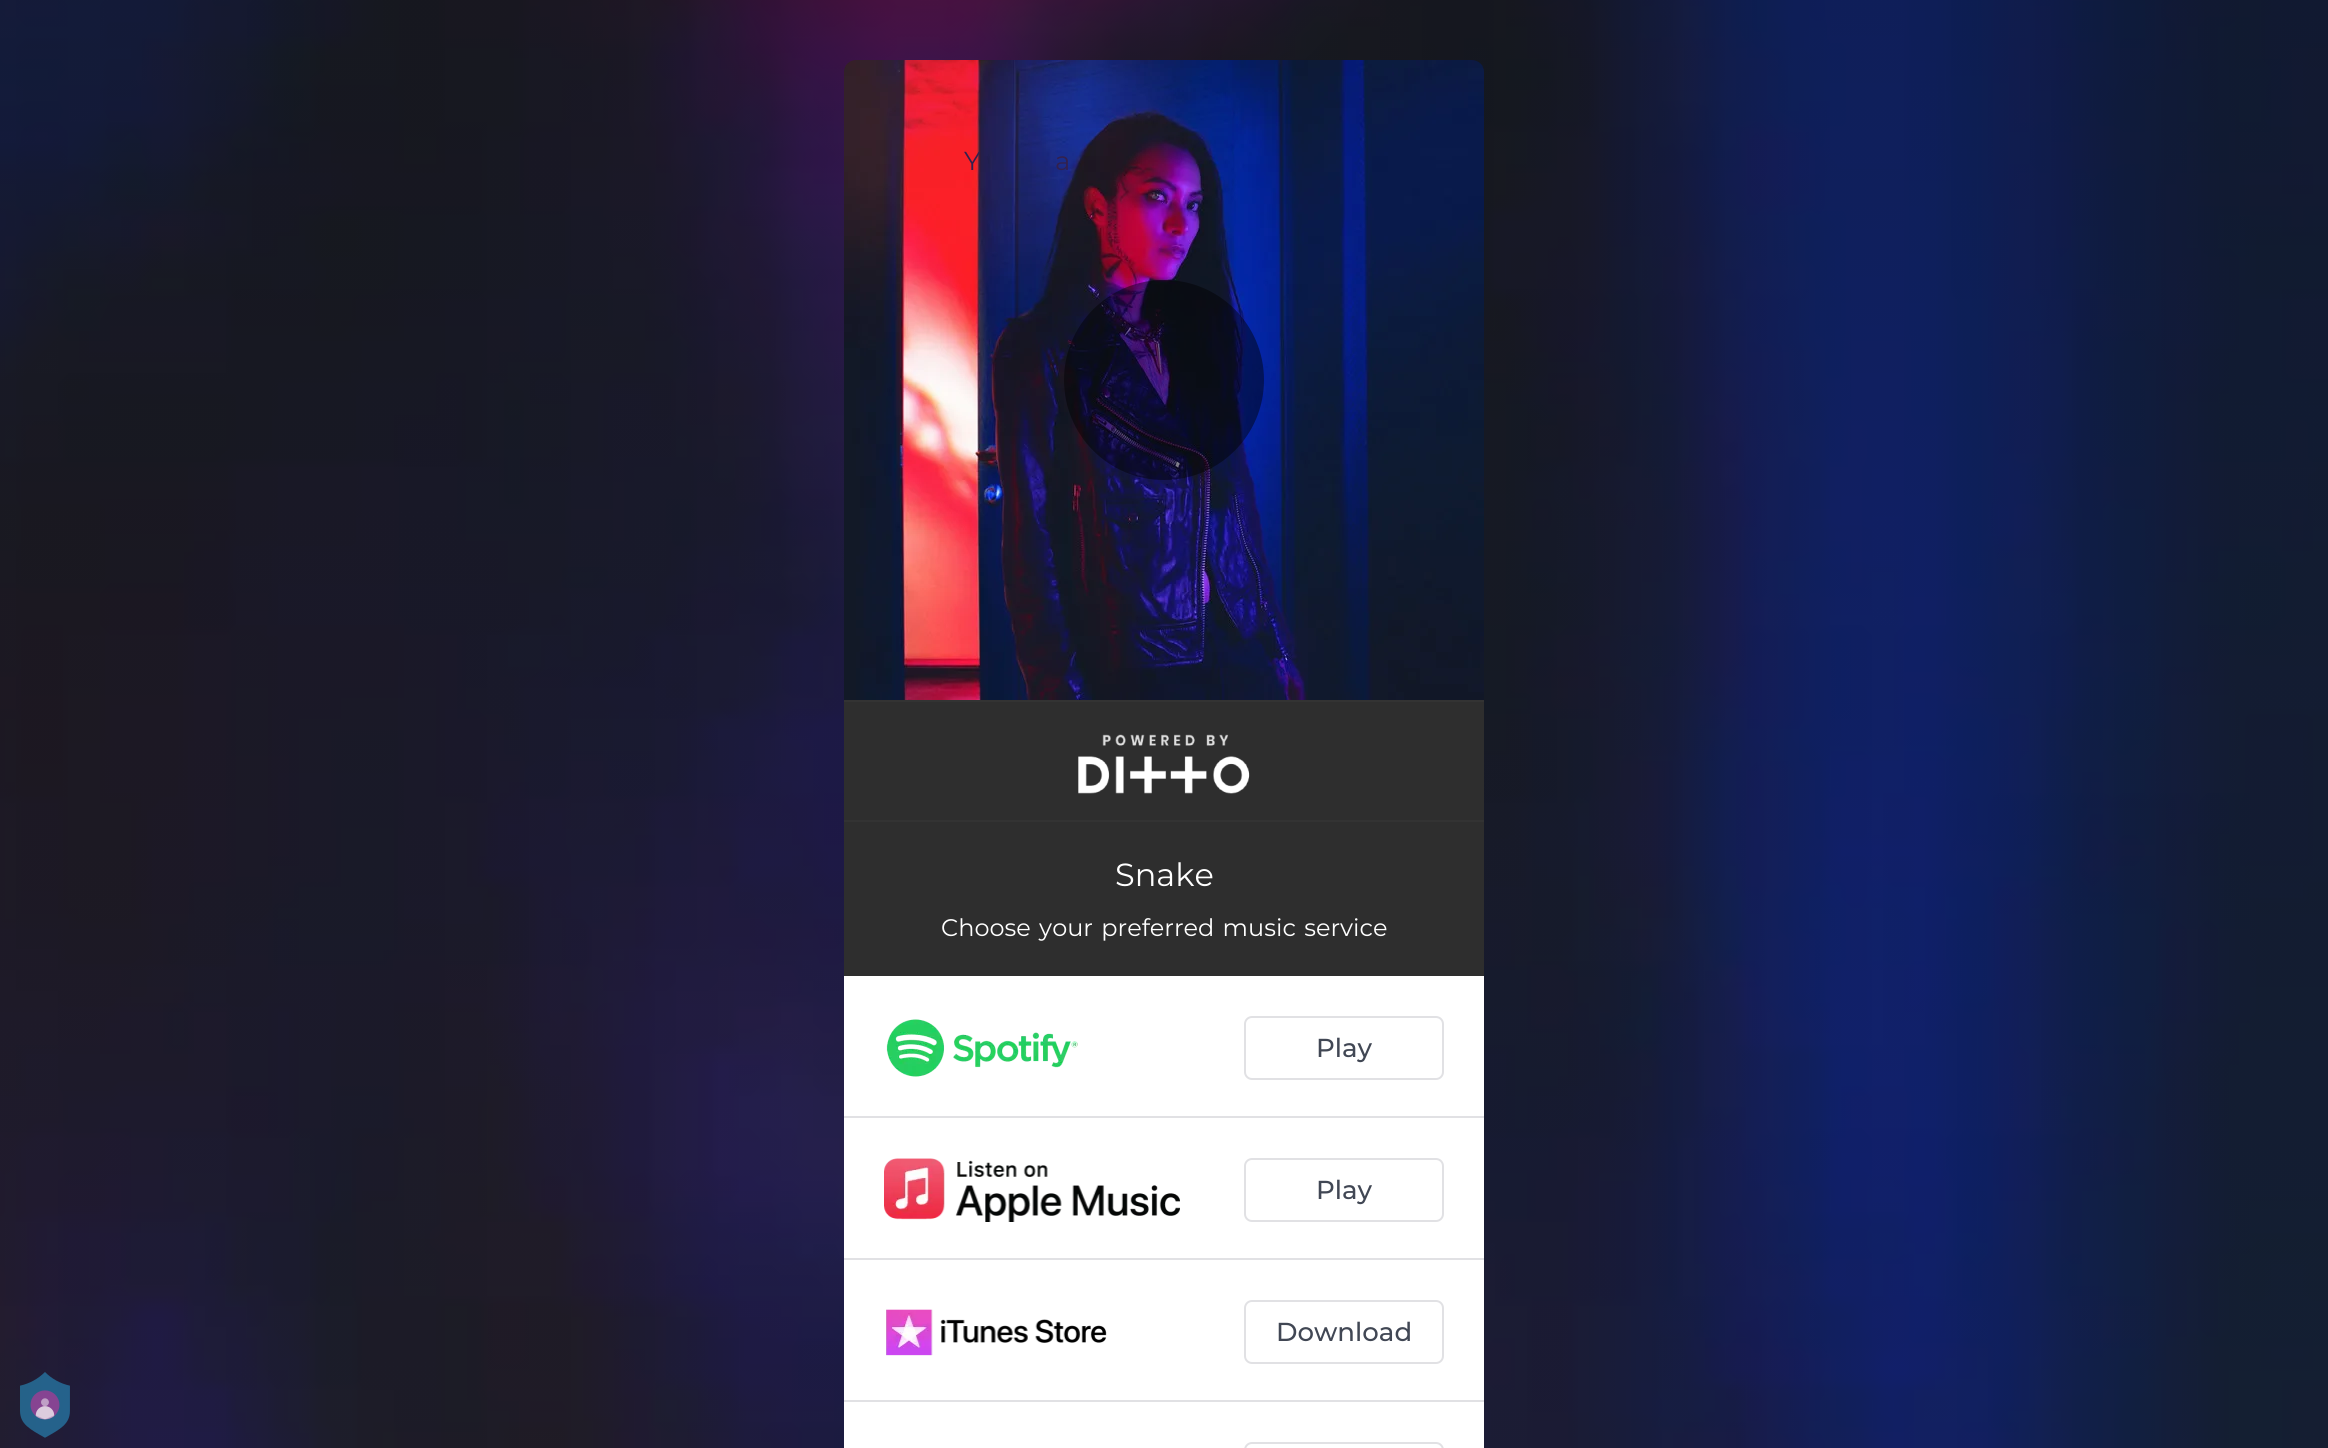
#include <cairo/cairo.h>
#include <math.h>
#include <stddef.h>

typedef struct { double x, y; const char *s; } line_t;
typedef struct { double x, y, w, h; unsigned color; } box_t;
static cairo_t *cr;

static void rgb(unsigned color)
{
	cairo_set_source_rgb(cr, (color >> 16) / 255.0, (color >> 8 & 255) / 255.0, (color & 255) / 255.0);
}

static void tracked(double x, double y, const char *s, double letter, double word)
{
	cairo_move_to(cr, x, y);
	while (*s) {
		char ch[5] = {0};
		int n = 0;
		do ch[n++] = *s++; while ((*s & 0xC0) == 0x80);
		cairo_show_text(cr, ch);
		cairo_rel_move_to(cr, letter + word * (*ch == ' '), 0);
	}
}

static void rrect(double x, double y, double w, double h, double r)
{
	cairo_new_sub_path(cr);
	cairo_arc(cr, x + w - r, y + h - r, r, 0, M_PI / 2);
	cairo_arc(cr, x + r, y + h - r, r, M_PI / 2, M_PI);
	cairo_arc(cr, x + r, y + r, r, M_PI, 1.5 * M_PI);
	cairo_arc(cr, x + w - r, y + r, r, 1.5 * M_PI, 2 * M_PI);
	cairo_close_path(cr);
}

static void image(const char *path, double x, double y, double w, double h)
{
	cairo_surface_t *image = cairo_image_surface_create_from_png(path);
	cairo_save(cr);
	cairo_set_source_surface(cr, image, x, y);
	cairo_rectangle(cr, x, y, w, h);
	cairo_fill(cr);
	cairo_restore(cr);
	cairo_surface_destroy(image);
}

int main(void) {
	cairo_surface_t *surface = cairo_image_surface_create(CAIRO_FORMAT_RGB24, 2328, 1448);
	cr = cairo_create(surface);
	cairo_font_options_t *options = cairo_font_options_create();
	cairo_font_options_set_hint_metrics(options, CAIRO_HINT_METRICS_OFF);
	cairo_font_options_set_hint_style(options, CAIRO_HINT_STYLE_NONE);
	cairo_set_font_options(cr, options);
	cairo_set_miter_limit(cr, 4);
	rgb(0xffffff);
	cairo_paint(cr);
	image("img/1.png", 0, 0, 2328, 1448);
	image("img/2.png", 844, 60, 640, 640);
	cairo_set_source_rgba(cr, 0, 0, 0, 0.45);
	cairo_arc(cr, 1164, 380, 100, 0, 2 * M_PI);
	cairo_fill(cr);
	{
		static const box_t items[] = {
			{844, 702, 640, 118, 0x2e2e2e},
			{844, 700, 640, 2, 0x333333},
			{844, 820, 640, 2, 0x333333},
		};
		for (size_t i = 0; i < sizeof items / sizeof *items; i++) {
			rgb(items[i].color);
			cairo_rectangle(cr, items[i].x, items[i].y, items[i].w, items[i].h);
			cairo_fill(cr);
		}
	}
	image("img/3.png", 1078, 734, 172, 60);
	{
		static const box_t items[] = {
			{844, 822, 640, 154, 0x2e2e2e},
			{844, 976, 640, 472, 0xffffff},
			{844, 1116, 640, 2, 0xe1e1e4},
		};
		for (size_t i = 0; i < sizeof items / sizeof *items; i++) {
			rgb(items[i].color);
			cairo_rectangle(cr, items[i].x, items[i].y, items[i].w, items[i].h);
			cairo_fill(cr);
		}
	}
	image("img/4.png", 886, 1019, 192, 58);
	rrect(1245, 1017, 198, 62, 7);
	cairo_stroke(cr);
	cairo_rectangle(cr, 844, 1258, 640, 2);
	cairo_fill(cr);
	image("img/5.png", 884, 1158, 296, 64);
	rrect(1245, 1159, 198, 62, 7);
	cairo_stroke(cr);
	cairo_rectangle(cr, 844, 1400, 640, 2);
	cairo_fill(cr);
	image("img/6.png", 886, 1309, 221, 47);
	rrect(1245, 1301, 198, 62, 7);
	cairo_stroke(cr);
	rrect(1245, 1443, 198, 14, 7);
	cairo_stroke(cr);
	image("img/7.png", 20, 1372, 50, 66);
	cairo_select_font_face(cr, "Montserrat", CAIRO_FONT_SLANT_NORMAL, CAIRO_FONT_WEIGHT_NORMAL);
	cairo_set_font_size(cr, 26);
	rgb(0x32204e);
	tracked(964, 170, "Y", 0, 2);
	tracked(1055, 170, "a", 0, 2);
	cairo_set_font_size(cr, 32);
	rgb(0xffffff);
	cairo_move_to(cr, 1115, 886);
	cairo_show_text(cr, "Snake");
	cairo_set_font_size(cr, 24);
	tracked(941, 936, "Choose your preferred music service", 0, 2);
	cairo_select_font_face(cr, "Montserrat Medium", CAIRO_FONT_SLANT_NORMAL, CAIRO_FONT_WEIGHT_NORMAL);
	cairo_set_font_size(cr, 26);
	rgb(0x414754);
	{
		static const line_t items[] = {
			{1316, 1057, "Play"},
			{1316, 1199, "Play"},
			{1276, 1341, "Download"},
		};
		for (size_t i = 0; i < sizeof items / sizeof *items; i++) {
			cairo_move_to(cr, items[i].x, items[i].y);
			cairo_show_text(cr, items[i].s);
		}
	}
	cairo_surface_write_to_png(surface, "page.png");
	cairo_font_options_destroy(options);
	cairo_destroy(cr);
	cairo_surface_destroy(surface);
	return 0;
}
